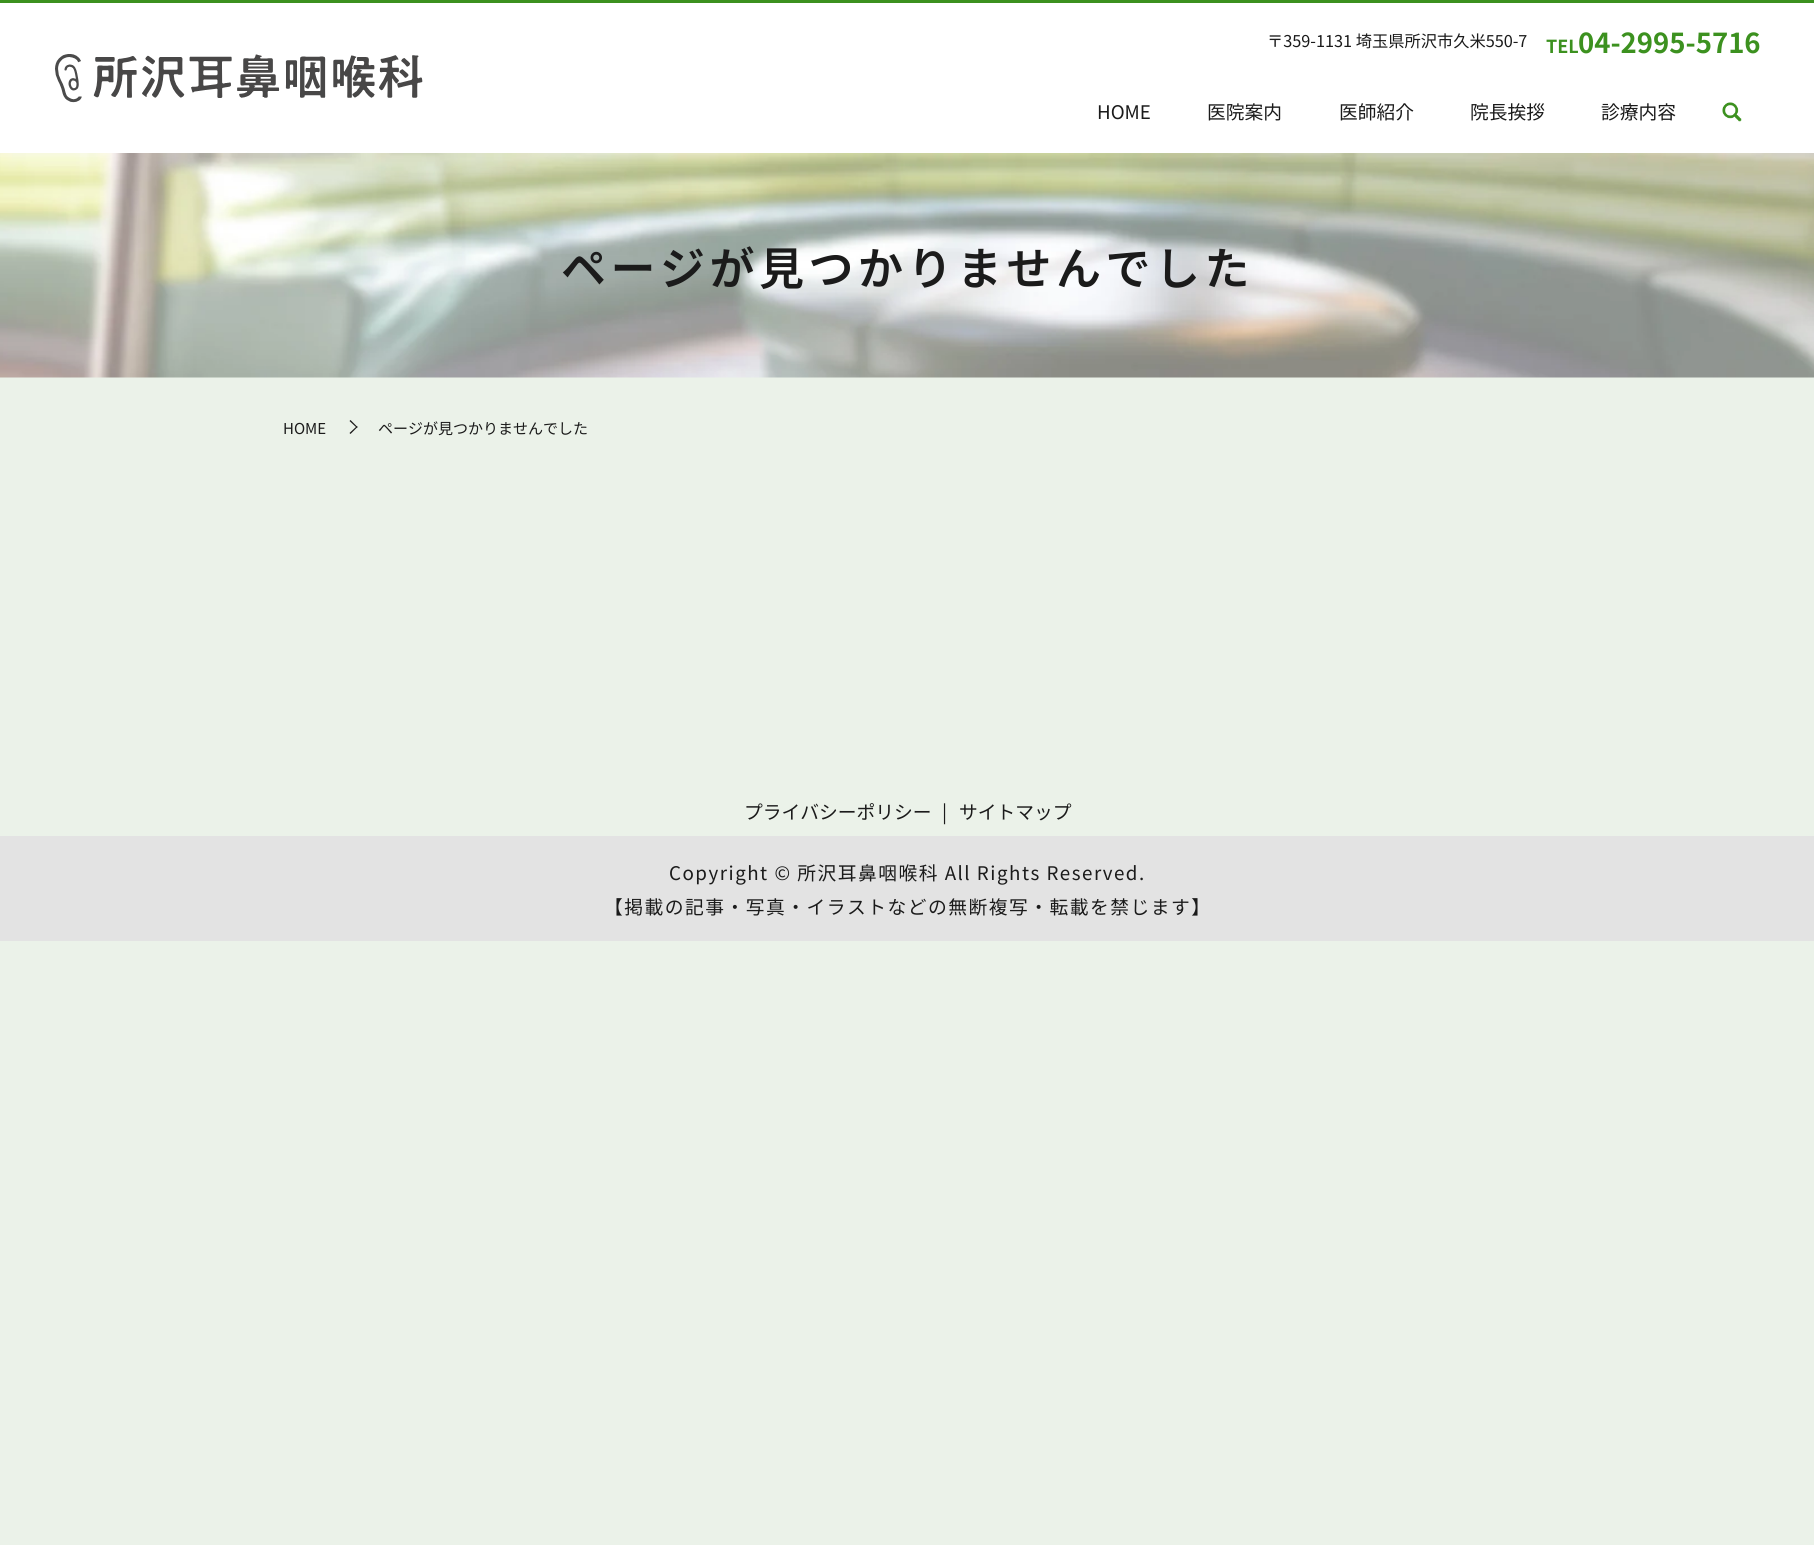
#include <cairo/cairo.h>
#include <math.h>
#include <stddef.h>

typedef struct { double x, y; const char *s; } line_t;
static cairo_t *cr;

static void rgb(unsigned color)
{
	cairo_set_source_rgb(cr, (color >> 16) / 255.0, (color >> 8 & 255) / 255.0, (color & 255) / 255.0);
}

static void tracked(double x, double y, const char *s, double letter, double word)
{
	cairo_move_to(cr, x, y);
	while (*s) {
		char ch[5] = {0};
		int n = 0;
		do ch[n++] = *s++; while ((*s & 0xC0) == 0x80);
		cairo_show_text(cr, ch);
		cairo_rel_move_to(cr, letter + word * (*ch == ' '), 0);
	}
}

static void image(const char *path, double x, double y, double w, double h)
{
	cairo_surface_t *image = cairo_image_surface_create_from_png(path);
	cairo_save(cr);
	cairo_set_source_surface(cr, image, x, y);
	cairo_rectangle(cr, x, y, w, h);
	cairo_fill(cr);
	cairo_restore(cr);
	cairo_surface_destroy(image);
}

int main(void) {
	cairo_surface_t *surface = cairo_image_surface_create(CAIRO_FORMAT_RGB24, 1814, 1545);
	cr = cairo_create(surface);
	cairo_font_options_t *options = cairo_font_options_create();
	cairo_font_options_set_hint_metrics(options, CAIRO_HINT_METRICS_OFF);
	cairo_font_options_set_hint_style(options, CAIRO_HINT_STYLE_NONE);
	cairo_set_font_options(cr, options);
	cairo_set_miter_limit(cr, 4);
	rgb(0xebf2e9);
	cairo_paint(cr);
	rgb(0xffffff);
	cairo_rectangle(cr, 0, 3, 1814, 150);
	cairo_fill(cr);
	rgb(0x3c911f);
	cairo_rectangle(cr, 0, 0, 1814, 3);
	cairo_fill(cr);
	image("img/1.png", 55, 54, 368, 49);
	image("img/2.png", 1722, 102, 20, 20);
	image("img/3.png", 0, 153, 1814, 225);
	rgb(0x1b1b1b);
	cairo_new_path(cr);
	cairo_move_to(cr, 350.5, 420);
	cairo_line_to(cr, 357.5, 427);
	cairo_line_to(cr, 357, 428);
	cairo_line_to(cr, 349.5, 421);
	cairo_close_path(cr);
	cairo_fill(cr);
	cairo_new_path(cr);
	cairo_move_to(cr, 357, 426);
	cairo_line_to(cr, 357.5, 427);
	cairo_line_to(cr, 350.5, 434);
	cairo_line_to(cr, 349.5, 433);
	cairo_close_path(cr);
	cairo_fill(cr);
	rgb(0xe3e3e3);
	cairo_rectangle(cr, 0, 836, 1814, 105);
	cairo_fill(cr);
	cairo_select_font_face(cr, "Noto Sans JP", CAIRO_FONT_SLANT_NORMAL, CAIRO_FONT_WEIGHT_NORMAL);
	cairo_set_font_size(cr, 16.25);
	rgb(0x1b1b1b);
	cairo_move_to(cr, 1267, 47);
	cairo_show_text(cr, "〒359-1131 埼玉県所沢市久米550-7");
	cairo_select_font_face(cr, "Noto Sans JP", CAIRO_FONT_SLANT_NORMAL, CAIRO_FONT_WEIGHT_BOLD);
	cairo_set_font_size(cr, 18);
	rgb(0x3c911f);
	cairo_move_to(cr, 1546, 53);
	cairo_show_text(cr, "TEL");
	cairo_set_font_size(cr, 27.5);
	cairo_move_to(cr, 1578, 53);
	cairo_show_text(cr, "04-2995-5716");
	cairo_select_font_face(cr, "Noto Sans JP", CAIRO_FONT_SLANT_NORMAL, CAIRO_FONT_WEIGHT_NORMAL);
	cairo_set_font_size(cr, 18.75);
	rgb(0x1b1b1b);
	{
		static const line_t items[] = {
			{1097, 119, "HOME"},
			{1207, 119, "医院案内"},
			{1339, 119, "医師紹介"},
			{1470, 119, "院長挨拶"},
			{1601, 119, "診療内容"},
		};
		for (size_t i = 0; i < sizeof items / sizeof *items; i++) {
			cairo_move_to(cr, items[i].x, items[i].y);
			cairo_show_text(cr, items[i].s);
		}
	}
	cairo_select_font_face(cr, "Noto Sans JP SemiBold", CAIRO_FONT_SLANT_NORMAL, CAIRO_FONT_WEIGHT_NORMAL);
	cairo_set_font_size(cr, 45);
	tracked(561, 285, "ページが見つかりませんでした", 4.5, 0);
	cairo_select_font_face(cr, "Noto Sans JP", CAIRO_FONT_SLANT_NORMAL, CAIRO_FONT_WEIGHT_NORMAL);
	cairo_set_font_size(cr, 15);
	cairo_move_to(cr, 283, 434);
	cairo_show_text(cr, "HOME");
	cairo_move_to(cr, 378, 434);
	cairo_show_text(cr, "ページが見つかりませんでした");
	cairo_set_font_size(cr, 18.75);
	{
		static const line_t items[] = {
			{744, 819, "プライバシーポリシー"},
			{942, 819, "|"},
			{959, 819, "サイトマップ"},
		};
		for (size_t i = 0; i < sizeof items / sizeof *items; i++) {
			cairo_move_to(cr, items[i].x, items[i].y);
			cairo_show_text(cr, items[i].s);
		}
	}
	tracked(669, 880, "Copyright © 所沢耳鼻咽喉科 All Rights Reserved.", 1.5, 0);
	tracked(604, 914, "【掲載の記事・写真・イラストなどの無断複写・転載を禁じます】", 1.5, 0);
	cairo_surface_write_to_png(surface, "page.png");
	cairo_font_options_destroy(options);
	cairo_destroy(cr);
	cairo_surface_destroy(surface);
	return 0;
}
